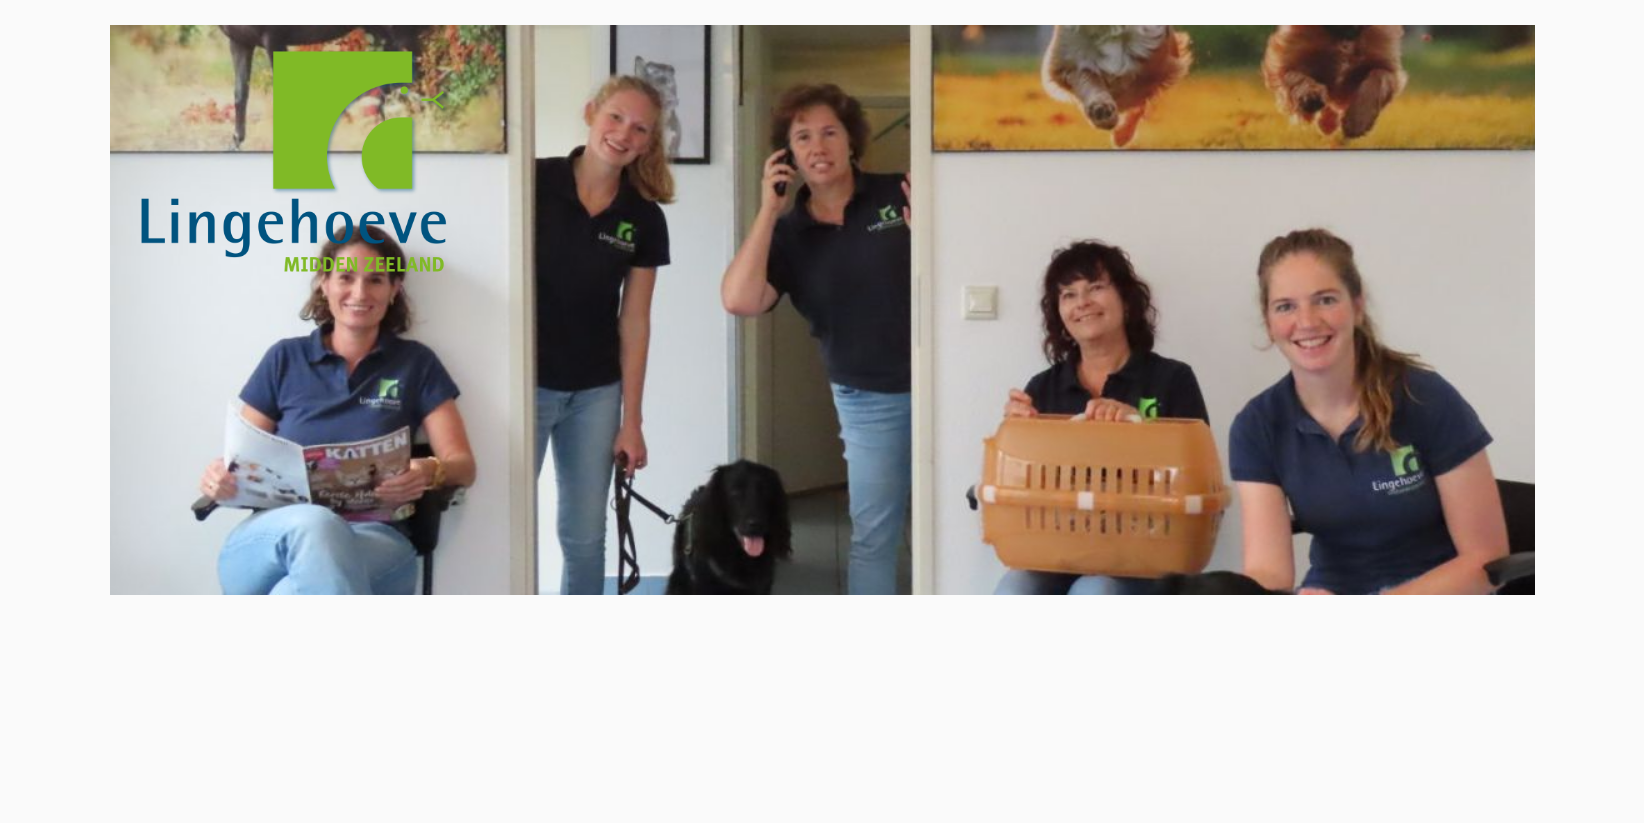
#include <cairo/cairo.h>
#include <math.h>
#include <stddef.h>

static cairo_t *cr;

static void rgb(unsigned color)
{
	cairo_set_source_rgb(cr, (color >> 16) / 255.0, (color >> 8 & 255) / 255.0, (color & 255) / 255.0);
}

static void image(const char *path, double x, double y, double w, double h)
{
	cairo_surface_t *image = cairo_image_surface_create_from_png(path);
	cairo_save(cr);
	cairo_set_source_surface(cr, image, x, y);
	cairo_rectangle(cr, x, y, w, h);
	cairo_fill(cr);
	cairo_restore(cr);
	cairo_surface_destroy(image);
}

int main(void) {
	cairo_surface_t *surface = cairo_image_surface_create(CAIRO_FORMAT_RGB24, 1644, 823);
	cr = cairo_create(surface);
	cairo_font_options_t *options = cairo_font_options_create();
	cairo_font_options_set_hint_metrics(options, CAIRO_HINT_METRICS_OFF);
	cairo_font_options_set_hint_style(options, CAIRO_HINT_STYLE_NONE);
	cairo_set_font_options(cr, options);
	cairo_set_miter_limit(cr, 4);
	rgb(0xfafafa);
	cairo_paint(cr);
	image("img/1.png", 110, 25, 1425, 570);
	image("img/2.png", 141, 50, 306, 222);
	cairo_surface_write_to_png(surface, "page.png");
	cairo_font_options_destroy(options);
	cairo_destroy(cr);
	cairo_surface_destroy(surface);
	return 0;
}
